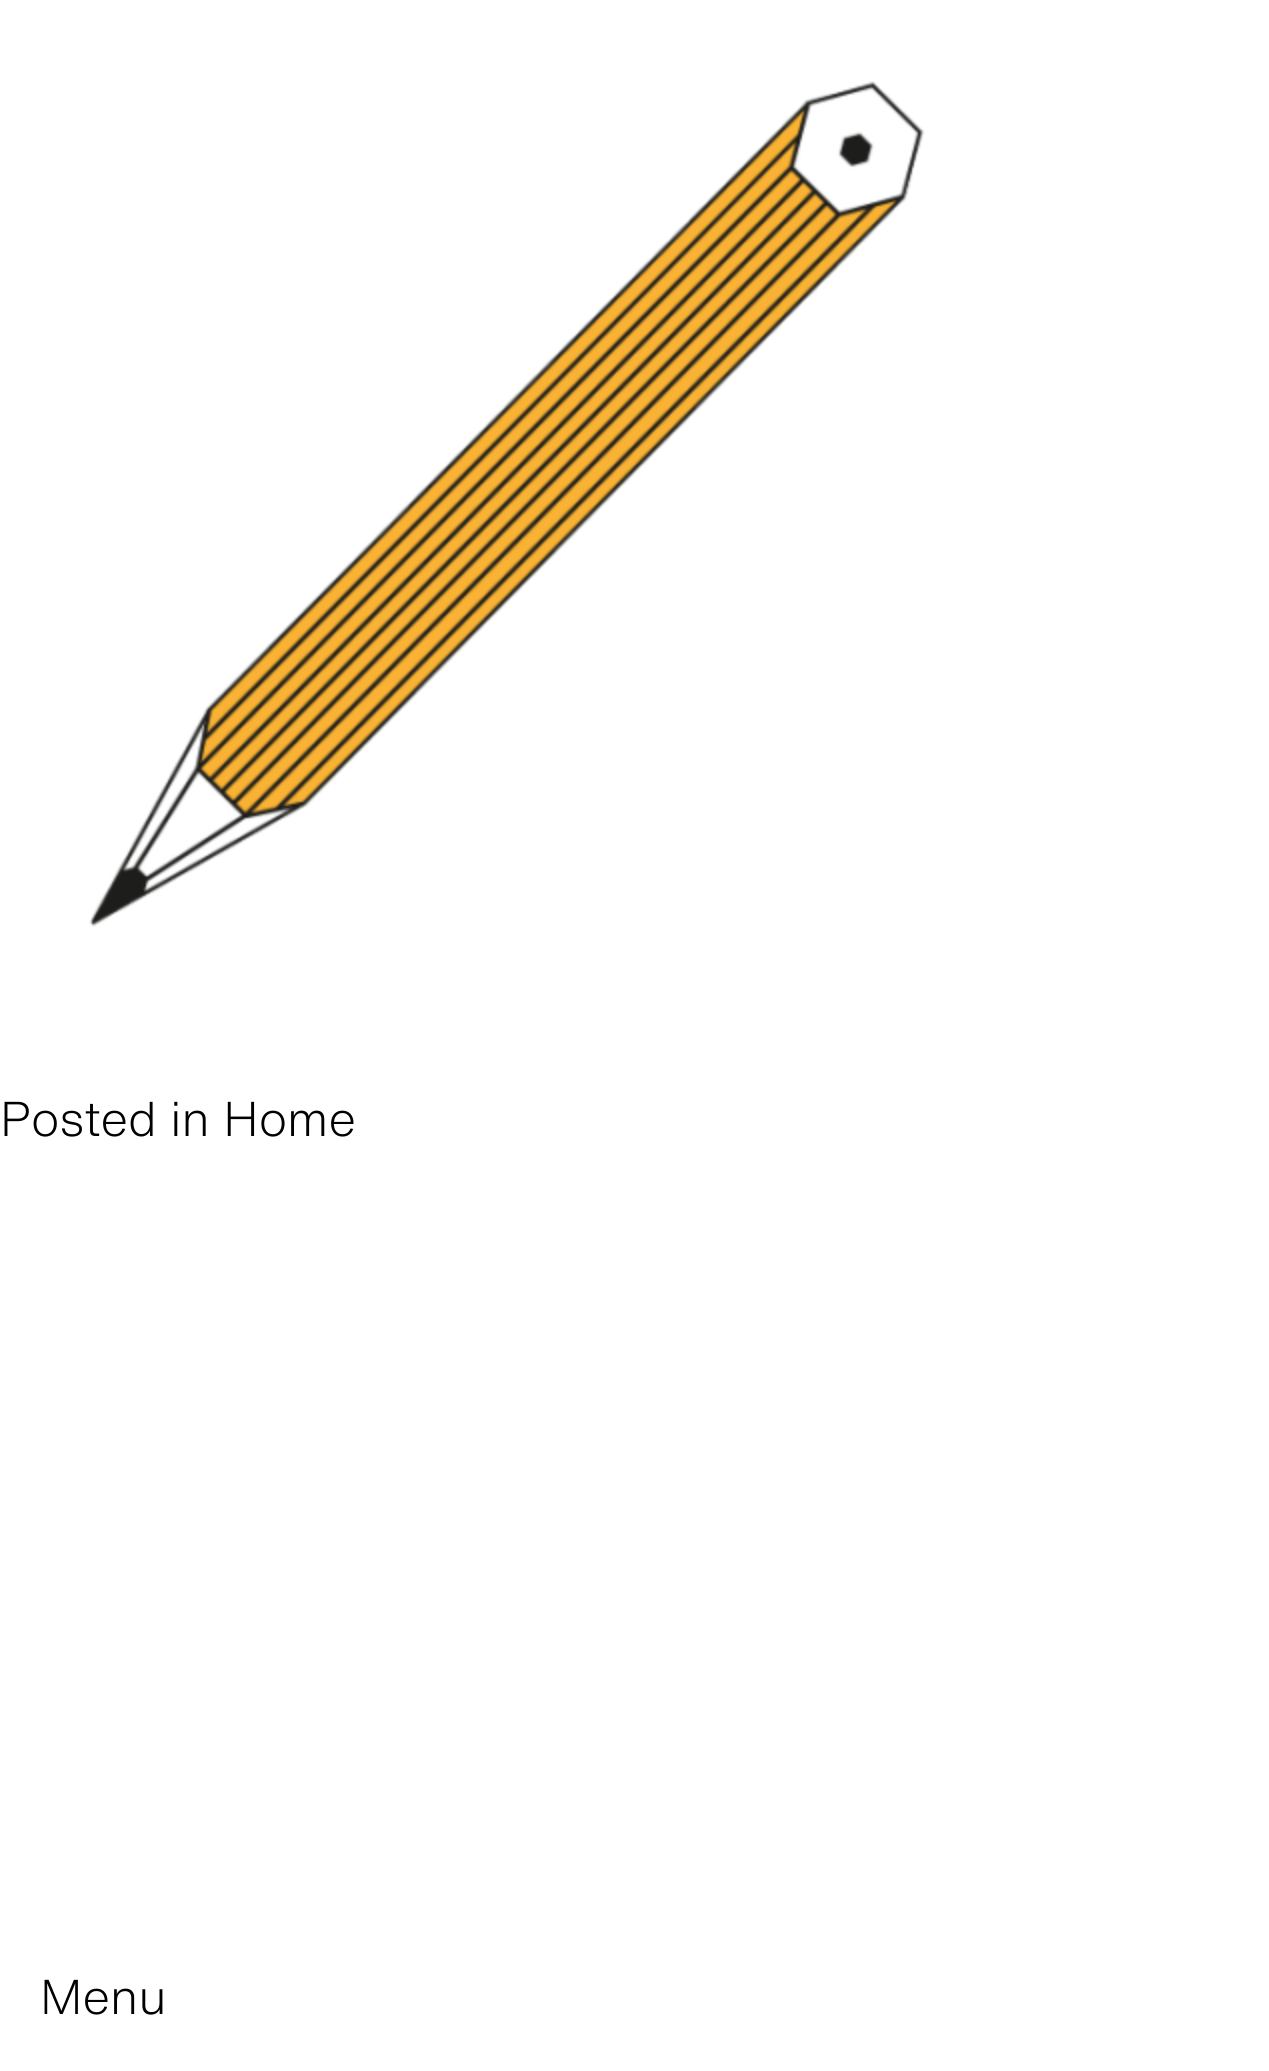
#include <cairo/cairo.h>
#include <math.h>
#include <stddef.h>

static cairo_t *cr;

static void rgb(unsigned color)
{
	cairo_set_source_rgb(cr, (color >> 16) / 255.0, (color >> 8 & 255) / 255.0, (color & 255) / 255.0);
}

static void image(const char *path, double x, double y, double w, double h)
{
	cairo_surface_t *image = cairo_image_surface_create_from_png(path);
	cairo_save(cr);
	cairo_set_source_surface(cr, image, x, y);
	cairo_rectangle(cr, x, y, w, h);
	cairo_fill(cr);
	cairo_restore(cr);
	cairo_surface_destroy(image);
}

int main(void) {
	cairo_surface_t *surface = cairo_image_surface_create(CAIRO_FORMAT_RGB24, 1269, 2071);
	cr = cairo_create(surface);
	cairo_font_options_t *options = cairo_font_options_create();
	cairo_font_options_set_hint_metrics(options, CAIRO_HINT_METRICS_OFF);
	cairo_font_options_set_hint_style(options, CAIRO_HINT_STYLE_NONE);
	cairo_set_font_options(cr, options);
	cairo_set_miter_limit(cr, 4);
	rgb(0xffffff);
	cairo_paint(cr);
	image("img/1.png", 89, 81, 836, 846);
	cairo_select_font_face(cr, "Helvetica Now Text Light", CAIRO_FONT_SLANT_NORMAL, CAIRO_FONT_WEIGHT_NORMAL);
	cairo_set_font_size(cr, 48);
	rgb(0x000000);
	cairo_move_to(cr, 0, 1136);
	cairo_show_text(cr, "Posted in Home");
	cairo_move_to(cr, 40, 2014);
	cairo_show_text(cr, "Menu");
	cairo_surface_write_to_png(surface, "page.png");
	cairo_font_options_destroy(options);
	cairo_destroy(cr);
	cairo_surface_destroy(surface);
	return 0;
}
